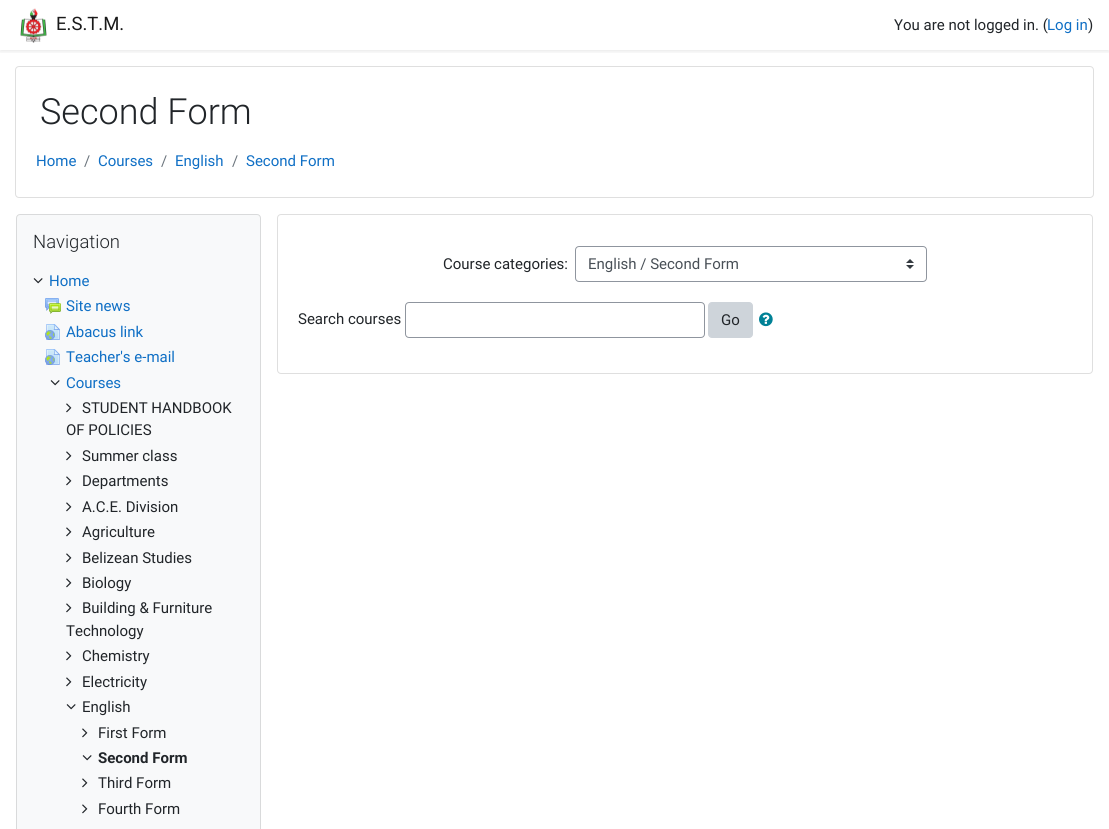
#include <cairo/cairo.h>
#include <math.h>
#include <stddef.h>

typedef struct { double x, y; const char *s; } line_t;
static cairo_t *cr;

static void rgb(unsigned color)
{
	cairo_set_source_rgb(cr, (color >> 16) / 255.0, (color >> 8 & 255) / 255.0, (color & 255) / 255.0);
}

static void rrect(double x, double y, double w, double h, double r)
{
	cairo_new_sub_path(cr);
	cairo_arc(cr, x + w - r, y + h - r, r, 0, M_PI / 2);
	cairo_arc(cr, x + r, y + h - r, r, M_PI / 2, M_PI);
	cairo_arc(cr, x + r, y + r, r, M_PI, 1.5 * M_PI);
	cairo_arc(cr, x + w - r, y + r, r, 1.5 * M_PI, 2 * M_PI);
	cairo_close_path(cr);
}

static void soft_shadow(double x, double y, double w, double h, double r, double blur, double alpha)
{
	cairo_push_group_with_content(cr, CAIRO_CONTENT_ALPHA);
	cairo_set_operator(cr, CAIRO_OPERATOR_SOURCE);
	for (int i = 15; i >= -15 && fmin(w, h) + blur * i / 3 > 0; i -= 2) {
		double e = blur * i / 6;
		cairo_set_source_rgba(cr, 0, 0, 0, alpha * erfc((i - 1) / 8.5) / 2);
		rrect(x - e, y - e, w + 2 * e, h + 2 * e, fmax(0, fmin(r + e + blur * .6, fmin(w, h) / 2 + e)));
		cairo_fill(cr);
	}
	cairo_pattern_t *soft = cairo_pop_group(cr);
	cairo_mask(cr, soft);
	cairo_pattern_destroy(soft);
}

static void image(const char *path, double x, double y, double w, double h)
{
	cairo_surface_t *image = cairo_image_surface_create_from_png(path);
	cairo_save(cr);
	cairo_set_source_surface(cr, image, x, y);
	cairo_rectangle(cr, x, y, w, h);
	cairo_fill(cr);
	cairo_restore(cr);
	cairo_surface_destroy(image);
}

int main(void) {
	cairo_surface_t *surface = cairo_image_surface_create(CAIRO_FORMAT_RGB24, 1109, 829);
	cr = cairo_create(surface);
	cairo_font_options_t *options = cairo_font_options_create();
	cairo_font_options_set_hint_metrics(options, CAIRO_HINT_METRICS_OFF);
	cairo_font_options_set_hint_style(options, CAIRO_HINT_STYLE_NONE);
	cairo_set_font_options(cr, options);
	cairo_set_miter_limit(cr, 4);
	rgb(0xffffff);
	cairo_paint(cr);
	cairo_save(cr);
	cairo_rectangle(cr, 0, 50, 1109, 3);
	cairo_clip(cr);
	rgb(0x000000);
	soft_shadow(0, 2, 1109, 50, 0, 2, 0.08);
	cairo_restore(cr);
	image("img/1.png", 20, 8, 27, 35);
	rrect(15.5, 66.5, 1078, 131, 3.5);
	rgb(0xdfdfdf);
	cairo_set_line_width(cr, 1);
	cairo_stroke(cr);
	rgb(0xf8f9fa);
	rrect(16.5, 214.5, 244, 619, 3.5);
	cairo_fill_preserve(cr);
	rgb(0xd9dadb);
	cairo_stroke(cr);
	image("img/2.png", 33, 278, 10, 6);
	image("img/3.png", 45, 298, 16, 16);
	image("img/4.png", 45, 324, 15, 16);
	image("img/5.png", 45, 349, 15, 16);
	image("img/2.png", 50, 380, 10, 6);
	image("img/6.png", 66, 403, 6, 10);
	image("img/6.png", 66, 451, 6, 10);
	image("img/6.png", 66, 476, 6, 10);
	image("img/6.png", 66, 502, 6, 10);
	image("img/6.png", 66, 527, 6, 10);
	image("img/6.png", 66, 553, 6, 10);
	image("img/6.png", 66, 578, 6, 10);
	image("img/6.png", 66, 603, 6, 10);
	image("img/6.png", 66, 651, 6, 10);
	image("img/6.png", 66, 677, 6, 10);
	image("img/2.png", 66, 704, 10, 6);
	image("img/6.png", 82, 728, 6, 10);
	image("img/2.png", 82, 755, 10, 6);
	image("img/6.png", 82, 778, 6, 10);
	image("img/6.png", 82, 804, 6, 10);
	rrect(277.5, 214.5, 815, 159, 3.5);
	rgb(0xdfdfdf);
	cairo_stroke(cr);
	image("img/7.png", 906, 259, 8, 10);
	rrect(575.5, 246.5, 351, 35, 3.5);
	rgb(0x8f959e);
	cairo_stroke(cr);
	rrect(405.5, 302.5, 299, 35, 3.5);
	cairo_stroke(cr);
	rgb(0xced4da);
	rrect(708.5, 302.5, 44, 35, 3.5);
	cairo_fill_preserve(cr);
	cairo_stroke(cr);
	image("img/8.png", 759, 312, 14, 15);
	cairo_select_font_face(cr, "Roboto", CAIRO_FONT_SLANT_NORMAL, CAIRO_FONT_WEIGHT_NORMAL);
	cairo_set_font_size(cr, 18.5);
	rgb(0x1a1a1a);
	cairo_move_to(cr, 56, 30);
	cairo_show_text(cr, "E.S.T.M.");
	cairo_set_font_size(cr, 15);
	rgb(0x212529);
	cairo_move_to(cr, 894, 30);
	cairo_show_text(cr, "You are not logged in. (");
	rgb(0x0f6fc5);
	cairo_move_to(cr, 1047, 30);
	cairo_show_text(cr, "Log in");
	rgb(0x212529);
	cairo_move_to(cr, 1088, 30);
	cairo_show_text(cr, ")");
	cairo_select_font_face(cr, "Roboto Light", CAIRO_FONT_SLANT_NORMAL, CAIRO_FONT_WEIGHT_NORMAL);
	cairo_set_font_size(cr, 36);
	cairo_move_to(cr, 40, 124);
	cairo_show_text(cr, "Second Form");
	cairo_select_font_face(cr, "Roboto", CAIRO_FONT_SLANT_NORMAL, CAIRO_FONT_WEIGHT_NORMAL);
	cairo_set_font_size(cr, 15);
	rgb(0x0f6fc5);
	cairo_move_to(cr, 36, 166);
	cairo_show_text(cr, "Home");
	rgb(0x6c757d);
	cairo_move_to(cr, 84, 166);
	cairo_show_text(cr, "/");
	rgb(0x0f6fc5);
	cairo_move_to(cr, 98, 166);
	cairo_show_text(cr, "Courses");
	rgb(0x6c757d);
	cairo_move_to(cr, 161, 166);
	cairo_show_text(cr, "/");
	rgb(0x0f6fc5);
	cairo_move_to(cr, 175, 166);
	cairo_show_text(cr, "English");
	rgb(0x6c757d);
	cairo_move_to(cr, 232, 166);
	cairo_show_text(cr, "/");
	rgb(0x0f6fc5);
	cairo_move_to(cr, 246, 166);
	cairo_show_text(cr, "Second Form");
	cairo_select_font_face(cr, "Roboto Light", CAIRO_FONT_SLANT_NORMAL, CAIRO_FONT_WEIGHT_NORMAL);
	cairo_set_font_size(cr, 18.5);
	rgb(0x212529);
	cairo_move_to(cr, 33, 248);
	cairo_show_text(cr, "Navigation");
	cairo_select_font_face(cr, "Roboto", CAIRO_FONT_SLANT_NORMAL, CAIRO_FONT_WEIGHT_NORMAL);
	cairo_set_font_size(cr, 15);
	rgb(0x0f6fc5);
	{
		static const line_t items[] = {
			{49, 286, "Home"},
			{66, 311, "Site news"},
			{66, 337, "Abacus link"},
			{66, 362, "Teacher's e-mail"},
			{66, 388, "Courses"},
		};
		for (size_t i = 0; i < sizeof items / sizeof *items; i++) {
			cairo_move_to(cr, items[i].x, items[i].y);
			cairo_show_text(cr, items[i].s);
		}
	}
	rgb(0x212529);
	{
		static const line_t items[] = {
			{82, 413, "STUDENT HANDBOOK"},
			{66, 435, "OF POLICIES"},
			{82, 461, "Summer class"},
			{82, 486, "Departments"},
			{82, 512, "A.C.E. Division"},
			{82, 537, "Agriculture"},
			{82, 563, "Belizean Studies"},
			{82, 588, "Biology"},
			{82, 613, "Building & Furniture"},
			{66, 636, "Technology"},
			{82, 661, "Chemistry"},
			{82, 687, "Electricity"},
			{82, 712, "English"},
			{98, 738, "First Form"},
		};
		for (size_t i = 0; i < sizeof items / sizeof *items; i++) {
			cairo_move_to(cr, items[i].x, items[i].y);
			cairo_show_text(cr, items[i].s);
		}
	}
	cairo_select_font_face(cr, "Roboto", CAIRO_FONT_SLANT_NORMAL, CAIRO_FONT_WEIGHT_BOLD);
	cairo_move_to(cr, 98, 763);
	cairo_show_text(cr, "Second Form");
	cairo_select_font_face(cr, "Roboto", CAIRO_FONT_SLANT_NORMAL, CAIRO_FONT_WEIGHT_NORMAL);
	{
		static const line_t items[] = {
			{98, 788, "Third Form"},
			{98, 814, "Fourth Form"},
			{443, 269, "Course categories:"},
		};
		for (size_t i = 0; i < sizeof items / sizeof *items; i++) {
			cairo_move_to(cr, items[i].x, items[i].y);
			cairo_show_text(cr, items[i].s);
		}
	}
	rgb(0x495057);
	cairo_move_to(cr, 588, 269);
	cairo_show_text(cr, "English / Second Form");
	rgb(0x212529);
	cairo_move_to(cr, 298, 324);
	cairo_show_text(cr, "Search courses");
	cairo_move_to(cr, 721, 325);
	cairo_show_text(cr, "Go");
	cairo_surface_write_to_png(surface, "page.png");
	cairo_font_options_destroy(options);
	cairo_destroy(cr);
	cairo_surface_destroy(surface);
	return 0;
}
